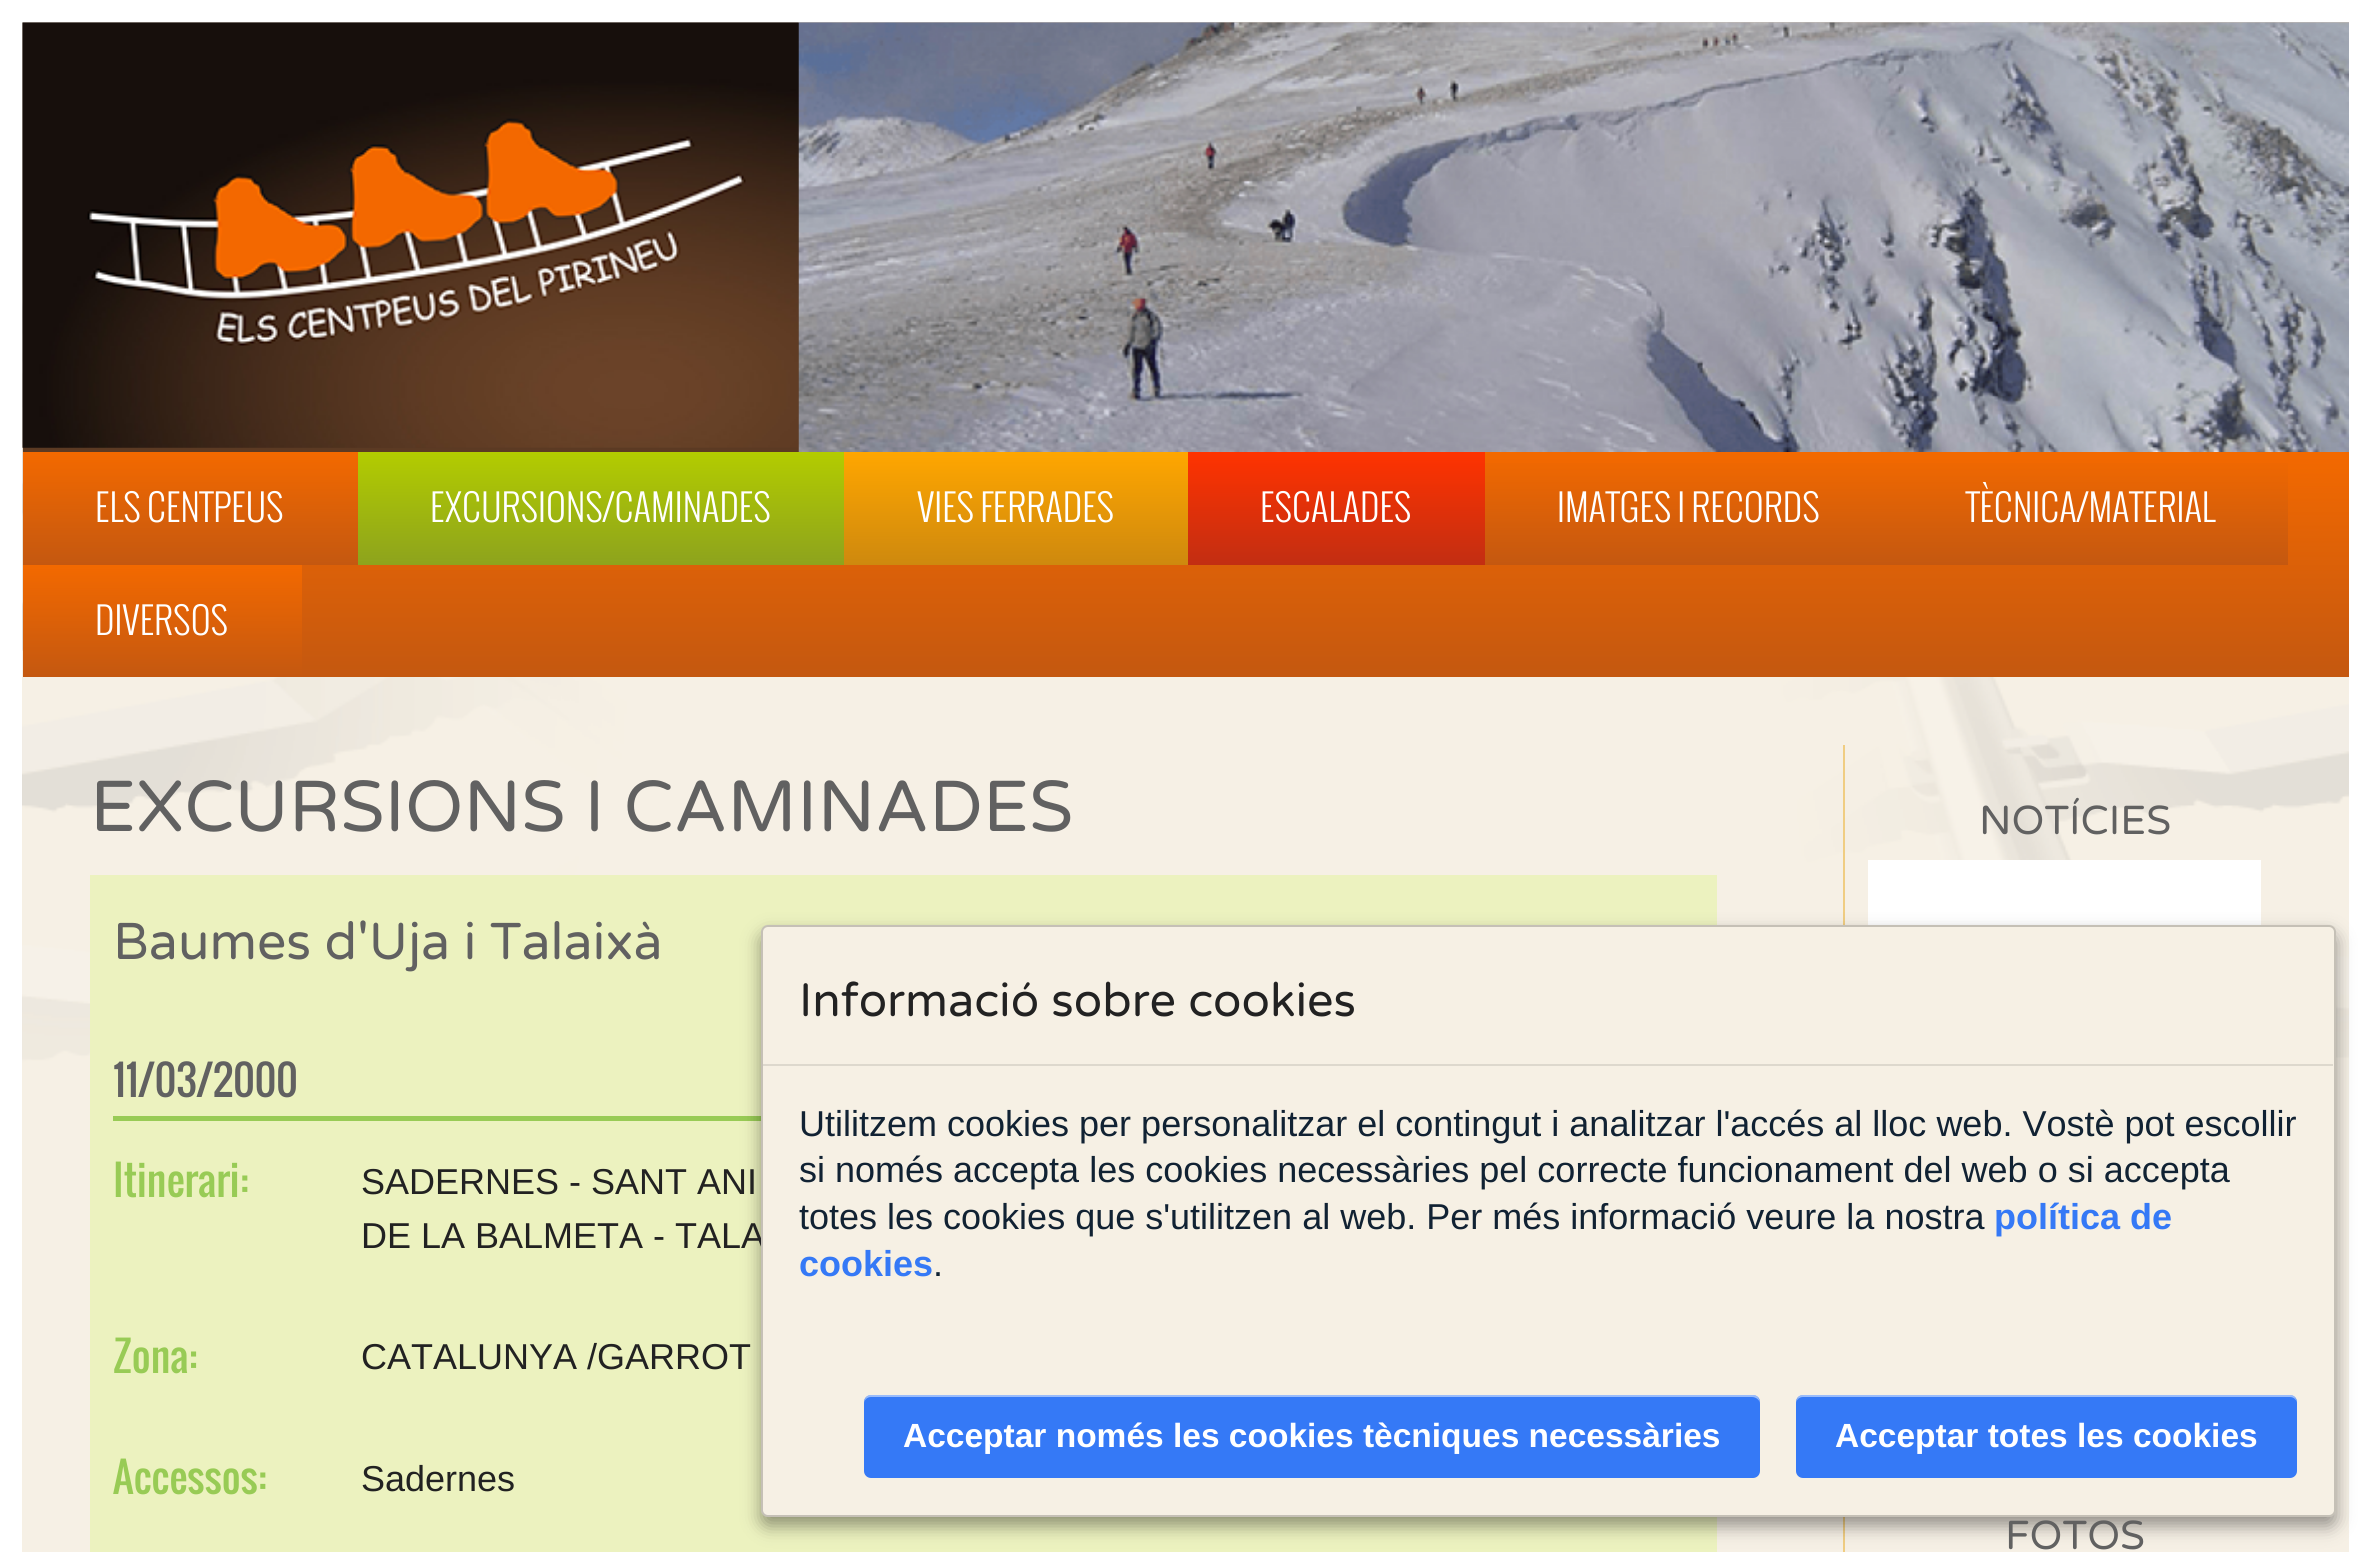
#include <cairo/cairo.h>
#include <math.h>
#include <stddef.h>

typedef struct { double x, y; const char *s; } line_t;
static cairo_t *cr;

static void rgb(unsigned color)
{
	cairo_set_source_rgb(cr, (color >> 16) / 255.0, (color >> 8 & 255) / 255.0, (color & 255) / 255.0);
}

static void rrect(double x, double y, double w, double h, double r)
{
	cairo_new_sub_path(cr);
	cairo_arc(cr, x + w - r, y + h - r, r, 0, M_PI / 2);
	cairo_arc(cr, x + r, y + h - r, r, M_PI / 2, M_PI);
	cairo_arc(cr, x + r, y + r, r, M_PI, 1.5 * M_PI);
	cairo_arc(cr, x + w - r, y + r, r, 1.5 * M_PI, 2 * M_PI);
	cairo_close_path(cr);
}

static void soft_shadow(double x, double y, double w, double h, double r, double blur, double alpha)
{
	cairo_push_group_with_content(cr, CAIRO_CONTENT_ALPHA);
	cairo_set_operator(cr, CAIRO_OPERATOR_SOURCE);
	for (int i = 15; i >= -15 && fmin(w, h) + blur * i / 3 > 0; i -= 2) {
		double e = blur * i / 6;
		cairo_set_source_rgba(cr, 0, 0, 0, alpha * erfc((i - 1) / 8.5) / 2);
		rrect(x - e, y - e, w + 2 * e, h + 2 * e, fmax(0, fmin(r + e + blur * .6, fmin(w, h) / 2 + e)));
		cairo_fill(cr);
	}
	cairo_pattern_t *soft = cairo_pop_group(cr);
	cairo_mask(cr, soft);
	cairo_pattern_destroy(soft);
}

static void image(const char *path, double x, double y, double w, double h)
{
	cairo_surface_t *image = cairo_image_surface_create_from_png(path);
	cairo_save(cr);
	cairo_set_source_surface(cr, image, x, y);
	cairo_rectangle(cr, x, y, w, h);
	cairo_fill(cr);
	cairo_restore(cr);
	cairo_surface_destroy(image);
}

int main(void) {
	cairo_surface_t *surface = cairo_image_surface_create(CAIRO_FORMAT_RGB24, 2370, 1552);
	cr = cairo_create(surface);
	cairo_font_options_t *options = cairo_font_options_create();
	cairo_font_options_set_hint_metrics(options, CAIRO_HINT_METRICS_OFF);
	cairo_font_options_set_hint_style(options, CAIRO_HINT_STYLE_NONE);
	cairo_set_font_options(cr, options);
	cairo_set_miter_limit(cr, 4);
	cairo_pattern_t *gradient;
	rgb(0xffffff);
	cairo_paint(cr);
	image("img/1.png", 22, 22, 2327, 1530);
	gradient = cairo_pattern_create_linear(1186, 22, 1186, 452);
	cairo_pattern_add_color_stop_rgba(gradient, 0, 0.086, 0.059, 0.043, 1);
	cairo_pattern_add_color_stop_rgba(gradient, 1, 0.361, 0.227, 0.137, 1);
	cairo_set_source(cr, gradient);
	cairo_pattern_destroy(gradient);
	cairo_rectangle(cr, 23, 23, 776, 429);
	cairo_fill(cr);
	image("img/2.png", 22, 22, 777, 426);
	image("img/3.png", 798, 22, 1551, 430);
	gradient = cairo_pattern_create_linear(1186, 452, 1186, 677);
	cairo_pattern_add_color_stop_rgba(gradient, 0, 0.953, 0.412, 0, 1);
	cairo_pattern_add_color_stop_rgba(gradient, 1, 0.769, 0.345, 0.063, 1);
	cairo_set_source(cr, gradient);
	cairo_pattern_destroy(gradient);
	cairo_rectangle(cr, 302, 452, 2047, 225);
	cairo_fill(cr);
	gradient = cairo_pattern_create_linear(190, 452, 190, 565);
	cairo_pattern_add_color_stop_rgba(gradient, 0, 0.953, 0.412, 0, 1);
	cairo_pattern_add_color_stop_rgba(gradient, 1, 0.769, 0.345, 0.063, 1);
	cairo_set_source(cr, gradient);
	cairo_pattern_destroy(gradient);
	cairo_rectangle(cr, 23, 452, 335, 113);
	cairo_fill(cr);
	gradient = cairo_pattern_create_linear(601, 452, 601, 565);
	cairo_pattern_add_color_stop_rgba(gradient, 0, 0.702, 0.8, 0, 1);
	cairo_pattern_add_color_stop_rgba(gradient, 1, 0.553, 0.639, 0.114, 1);
	cairo_set_source(cr, gradient);
	cairo_pattern_destroy(gradient);
	cairo_rectangle(cr, 358, 452, 486, 113);
	cairo_fill(cr);
	gradient = cairo_pattern_create_linear(1016, 452, 1016, 565);
	cairo_pattern_add_color_stop_rgba(gradient, 0, 1, 0.651, 0, 1);
	cairo_pattern_add_color_stop_rgba(gradient, 1, 0.808, 0.537, 0.055, 1);
	cairo_set_source(cr, gradient);
	cairo_pattern_destroy(gradient);
	cairo_rectangle(cr, 844, 452, 344, 113);
	cairo_fill(cr);
	gradient = cairo_pattern_create_linear(1337, 452, 1337, 565);
	cairo_pattern_add_color_stop_rgba(gradient, 0, 1, 0.2, 0, 1);
	cairo_pattern_add_color_stop_rgba(gradient, 1, 0.761, 0.18, 0.071, 1);
	cairo_set_source(cr, gradient);
	cairo_pattern_destroy(gradient);
	cairo_rectangle(cr, 1188, 452, 297, 113);
	cairo_fill(cr);
	gradient = cairo_pattern_create_linear(1689, 452, 1689, 565);
	cairo_pattern_add_color_stop_rgba(gradient, 0, 0.953, 0.412, 0, 1);
	cairo_pattern_add_color_stop_rgba(gradient, 1, 0.769, 0.345, 0.063, 1);
	cairo_set_source(cr, gradient);
	cairo_pattern_destroy(gradient);
	cairo_rectangle(cr, 1485, 463, 407, 102);
	cairo_fill(cr);
	gradient = cairo_pattern_create_linear(2090, 452, 2090, 565);
	cairo_pattern_add_color_stop_rgba(gradient, 0, 0.953, 0.412, 0, 1);
	cairo_pattern_add_color_stop_rgba(gradient, 1, 0.769, 0.345, 0.063, 1);
	cairo_set_source(cr, gradient);
	cairo_pattern_destroy(gradient);
	cairo_rectangle(cr, 1892, 463, 396, 102);
	cairo_fill(cr);
	gradient = cairo_pattern_create_linear(162, 565, 162, 677);
	cairo_pattern_add_color_stop_rgba(gradient, 0, 0.953, 0.412, 0, 1);
	cairo_pattern_add_color_stop_rgba(gradient, 1, 0.769, 0.345, 0.063, 1);
	cairo_set_source(cr, gradient);
	cairo_pattern_destroy(gradient);
	cairo_rectangle(cr, 23, 565, 279, 112);
	cairo_fill(cr);
	cairo_set_source_rgba(cr, 1, 1, 1, 0.5);
	cairo_rectangle(cr, 23, 677, 2326, 875);
	cairo_fill(cr);
	rgb(0xecf2bf);
	cairo_rectangle(cr, 90, 875, 1627, 677);
	cairo_fill(cr);
	rgb(0x98cb55);
	cairo_rectangle(cr, 113, 1116, 648, 5);
	cairo_fill(cr);
	rgb(0xf0cd82);
	cairo_rectangle(cr, 1843, 745, 2, 807);
	cairo_fill(cr);
	rgb(0xffffff);
	cairo_rectangle(cr, 1868, 860, 393, 65);
	cairo_fill(cr);
	rgb(0x000000);
	soft_shadow(761, 934, 1575, 592, 7, 9, 0.4);
	cairo_select_font_face(cr, "Oswald Light", CAIRO_FONT_SLANT_NORMAL, CAIRO_FONT_WEIGHT_NORMAL);
	cairo_set_font_size(cr, 36.5);
	rgb(0xffffff);
	{
		static const line_t items[] = {
			{95, 522, "ELS CENTPEUS"},
			{430, 522, "EXCURSIONS/CAMINADES"},
			{917, 522, "VIES FERRADES"},
			{1260, 522, "ESCALADES"},
			{1557, 522, "IMATGES I RECORDS"},
			{1966, 522, "TÈCNICA/MATERIAL"},
			{95, 635, "DIVERSOS"},
		};
		for (size_t i = 0; i < sizeof items / sizeof *items; i++) {
			cairo_move_to(cr, items[i].x, items[i].y);
			cairo_show_text(cr, items[i].s);
		}
	}
	cairo_select_font_face(cr, "Varela Round", CAIRO_FONT_SLANT_NORMAL, CAIRO_FONT_WEIGHT_NORMAL);
	cairo_set_font_size(cr, 72);
	rgb(0x616161);
	cairo_move_to(cr, 90, 831);
	cairo_show_text(cr, "EXCURSIONS I CAMINADES");
	cairo_set_font_size(cr, 51.75);
	cairo_move_to(cr, 113, 959);
	cairo_show_text(cr, "Baumes d'Uja i Talaixà");
	cairo_select_font_face(cr, "Oswald", CAIRO_FONT_SLANT_NORMAL, CAIRO_FONT_WEIGHT_NORMAL);
	cairo_set_font_size(cr, 40.5);
	cairo_move_to(cr, 113, 1097);
	cairo_show_text(cr, "11/03/2000");
	rgb(0x98cb55);
	cairo_move_to(cr, 113, 1197);
	cairo_show_text(cr, "Itinerari:");
	cairo_select_font_face(cr, "Liberation Sans", CAIRO_FONT_SLANT_NORMAL, CAIRO_FONT_WEIGHT_NORMAL);
	cairo_set_font_size(cr, 36);
	rgb(0x222222);
	cairo_move_to(cr, 361, 1194);
	cairo_show_text(cr, "SADERNES - SANT ANI");
	cairo_move_to(cr, 361, 1248);
	cairo_show_text(cr, "DE LA BALMETA - TALA");
	cairo_select_font_face(cr, "Oswald", CAIRO_FONT_SLANT_NORMAL, CAIRO_FONT_WEIGHT_NORMAL);
	cairo_set_font_size(cr, 40.5);
	rgb(0x98cb55);
	cairo_move_to(cr, 113, 1373);
	cairo_show_text(cr, "Zona:");
	cairo_select_font_face(cr, "Liberation Sans", CAIRO_FONT_SLANT_NORMAL, CAIRO_FONT_WEIGHT_NORMAL);
	cairo_set_font_size(cr, 36);
	rgb(0x222222);
	cairo_move_to(cr, 361, 1369);
	cairo_show_text(cr, "CATALUNYA /GARROT");
	cairo_select_font_face(cr, "Oswald", CAIRO_FONT_SLANT_NORMAL, CAIRO_FONT_WEIGHT_NORMAL);
	cairo_set_font_size(cr, 40.5);
	rgb(0x98cb55);
	cairo_move_to(cr, 113, 1494);
	cairo_show_text(cr, "Accessos:");
	cairo_select_font_face(cr, "Liberation Sans", CAIRO_FONT_SLANT_NORMAL, CAIRO_FONT_WEIGHT_NORMAL);
	cairo_set_font_size(cr, 36);
	rgb(0x222222);
	cairo_move_to(cr, 361, 1491);
	cairo_show_text(cr, "Sadernes");
	cairo_select_font_face(cr, "Varela Round", CAIRO_FONT_SLANT_NORMAL, CAIRO_FONT_WEIGHT_NORMAL);
	cairo_set_font_size(cr, 40.5);
	rgb(0x616161);
	cairo_move_to(cr, 1979, 834);
	cairo_show_text(cr, "NOTÍCIES");
	cairo_move_to(cr, 2005, 1549);
	cairo_show_text(cr, "FOTOS");
	rgb(0xf6f0e4);
	rrect(761, 925, 1575, 592, 7);
	cairo_fill(cr);
	rrect(762, 926, 1573, 590, 6);
	cairo_set_source_rgba(cr, 0, 0, 0, 0.2);
	cairo_stroke(cr);
	rgb(0xddd8cd);
	cairo_rectangle(cr, 763, 1064, 1570, 2);
	cairo_fill(cr);
	cairo_set_font_size(cr, 46.75);
	rgb(0x222222);
	cairo_move_to(cr, 799, 1016);
	cairo_show_text(cr, "Informació sobre cookies");
	cairo_select_font_face(cr, "Liberation Sans", CAIRO_FONT_SLANT_NORMAL, CAIRO_FONT_WEIGHT_NORMAL);
	cairo_set_font_size(cr, 36);
	rgb(0x112233);
	{
		static const line_t items[] = {
			{799, 1136, "Utilitzem cookies per personalitzar el contingut i analitzar l'accés al lloc web. Vostè pot escollir"},
			{799, 1182, "si només accepta les cookies necessàries pel correcte funcionament del web o si accepta"},
			{799, 1229, "totes les cookies que s'utilitzen al web. Per més informació veure la nostra"},
		};
		for (size_t i = 0; i < sizeof items / sizeof *items; i++) {
			cairo_move_to(cr, items[i].x, items[i].y);
			cairo_show_text(cr, items[i].s);
		}
	}
	cairo_select_font_face(cr, "Liberation Sans", CAIRO_FONT_SLANT_NORMAL, CAIRO_FONT_WEIGHT_BOLD);
	rgb(0x3579f6);
	cairo_move_to(cr, 1994, 1229);
	cairo_show_text(cr, "política de");
	cairo_move_to(cr, 799, 1276);
	cairo_show_text(cr, "cookies");
	cairo_select_font_face(cr, "Liberation Sans", CAIRO_FONT_SLANT_NORMAL, CAIRO_FONT_WEIGHT_NORMAL);
	rgb(0x112233);
	cairo_move_to(cr, 933, 1276);
	cairo_show_text(cr, ".");
	rgb(0x3579f6);
	rrect(864, 1395, 896, 83, 7);
	cairo_fill(cr);
	cairo_set_source_rgba(cr, 1, 1, 1, 0.5);
	cairo_new_path(cr);
	cairo_move_to(cr, 871, 1397);
	cairo_line_to(cr, 1752, 1397);
	cairo_curve_to(cr, 1756, 1397, 1760, 1400, 1760, 1404);
	cairo_curve_to(cr, 1760, 1400, 1758, 1395, 1753, 1395);
	cairo_line_to(cr, 871, 1395);
	cairo_curve_to(cr, 866, 1395, 864, 1400, 864, 1404);
	cairo_curve_to(cr, 864, 1400, 867, 1397, 871, 1397);
	cairo_close_path(cr);
	cairo_fill(cr);
	cairo_select_font_face(cr, "Liberation Sans", CAIRO_FONT_SLANT_NORMAL, CAIRO_FONT_WEIGHT_BOLD);
	cairo_set_font_size(cr, 33.5);
	rgb(0xffffff);
	cairo_move_to(cr, 903, 1447);
	cairo_show_text(cr, "Acceptar només les cookies tècniques necessàries");
	rgb(0x3579f6);
	rrect(1796, 1395, 501, 83, 7);
	cairo_fill(cr);
	cairo_set_source_rgba(cr, 1, 1, 1, 0.5);
	cairo_new_path(cr);
	cairo_move_to(cr, 1803, 1397);
	cairo_line_to(cr, 2290, 1397);
	cairo_curve_to(cr, 2294, 1397, 2297, 1400, 2297, 1404);
	cairo_curve_to(cr, 2297, 1400, 2295, 1395, 2290, 1395);
	cairo_line_to(cr, 1803, 1395);
	cairo_curve_to(cr, 1798, 1395, 1796, 1400, 1796, 1404);
	cairo_curve_to(cr, 1796, 1400, 1799, 1397, 1803, 1397);
	cairo_close_path(cr);
	cairo_fill(cr);
	rgb(0xffffff);
	cairo_move_to(cr, 1835, 1447);
	cairo_show_text(cr, "Acceptar totes les cookies");
	cairo_surface_write_to_png(surface, "page.png");
	cairo_font_options_destroy(options);
	cairo_destroy(cr);
	cairo_surface_destroy(surface);
	return 0;
}
